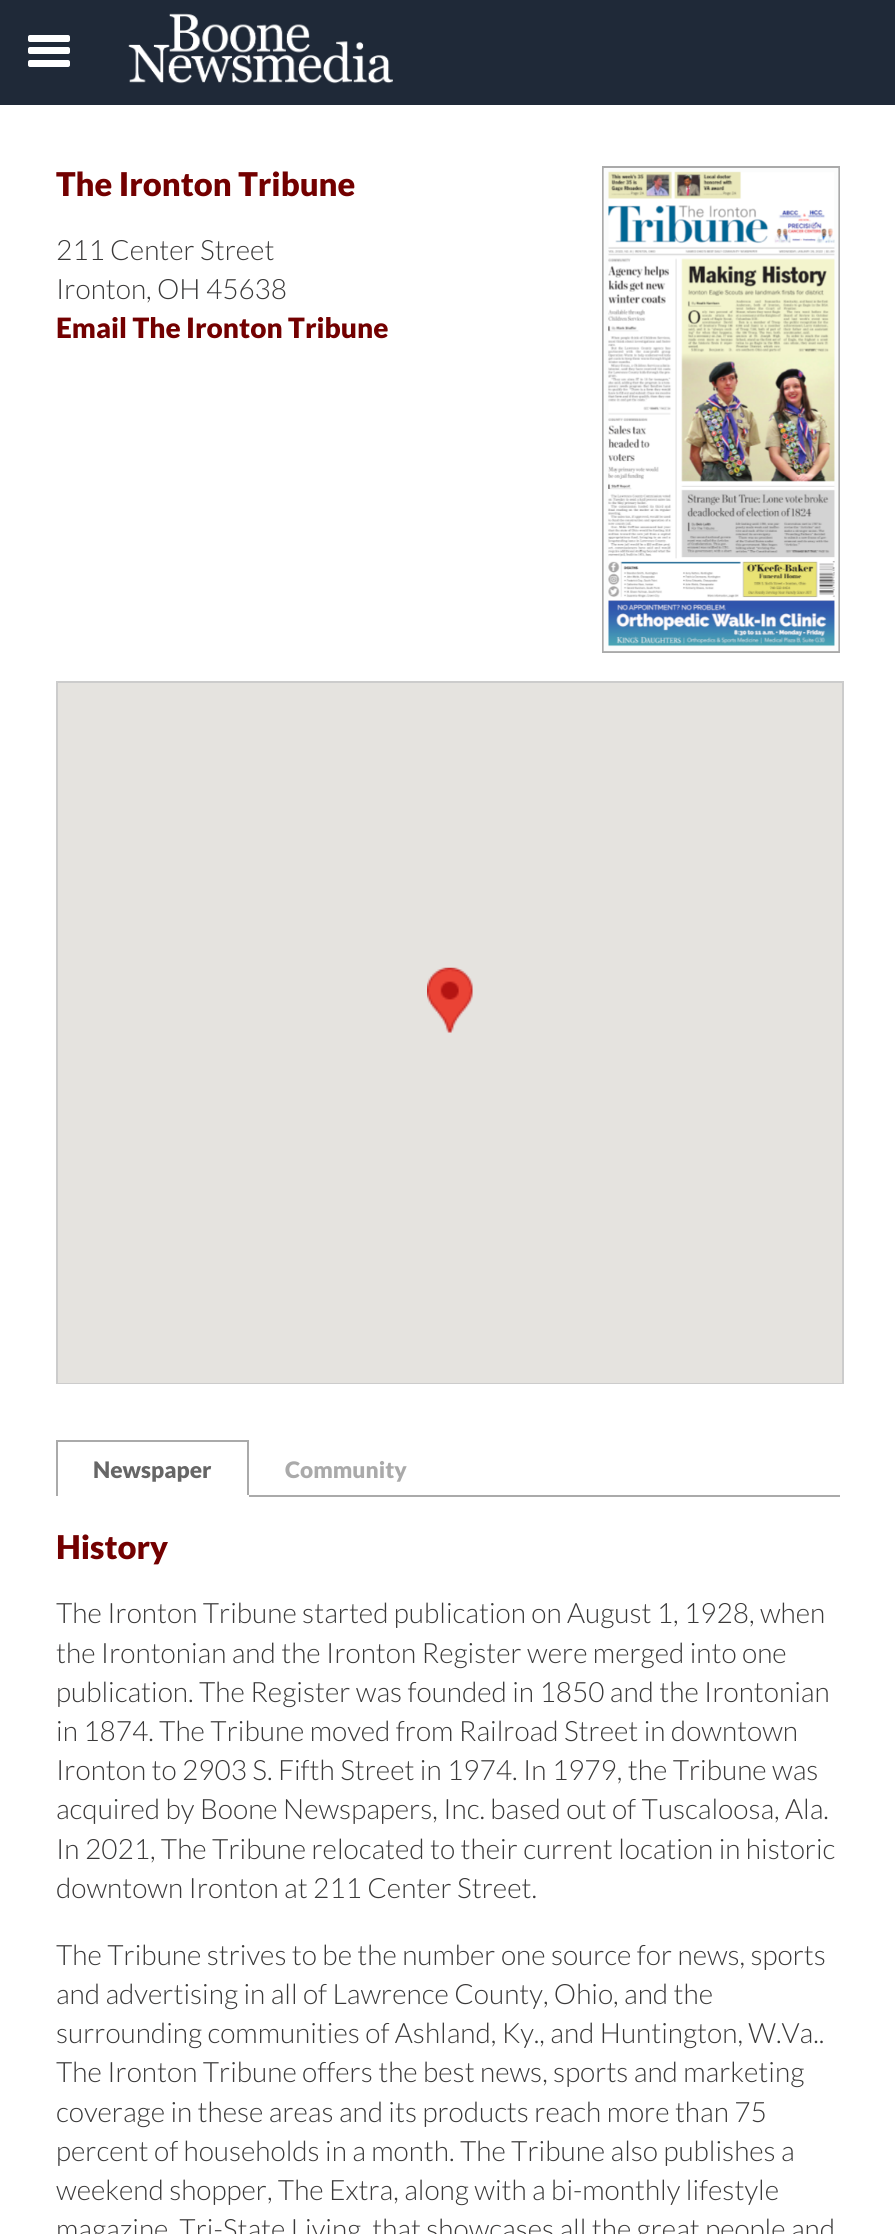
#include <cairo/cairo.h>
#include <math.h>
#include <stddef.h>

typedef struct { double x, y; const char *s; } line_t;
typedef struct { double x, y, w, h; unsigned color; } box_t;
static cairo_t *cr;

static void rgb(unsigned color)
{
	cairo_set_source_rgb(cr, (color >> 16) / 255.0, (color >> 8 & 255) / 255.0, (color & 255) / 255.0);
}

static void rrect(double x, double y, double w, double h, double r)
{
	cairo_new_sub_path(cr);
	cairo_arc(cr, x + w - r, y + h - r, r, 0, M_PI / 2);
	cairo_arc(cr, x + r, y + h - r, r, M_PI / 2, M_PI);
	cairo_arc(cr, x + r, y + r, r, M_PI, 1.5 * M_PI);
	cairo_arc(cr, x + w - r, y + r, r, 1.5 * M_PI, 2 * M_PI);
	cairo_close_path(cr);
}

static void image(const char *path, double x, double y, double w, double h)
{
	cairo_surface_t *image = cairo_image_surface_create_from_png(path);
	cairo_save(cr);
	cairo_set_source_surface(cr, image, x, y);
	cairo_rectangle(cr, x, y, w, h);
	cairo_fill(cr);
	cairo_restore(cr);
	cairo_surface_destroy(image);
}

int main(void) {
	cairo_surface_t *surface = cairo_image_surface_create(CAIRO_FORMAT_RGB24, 895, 2234);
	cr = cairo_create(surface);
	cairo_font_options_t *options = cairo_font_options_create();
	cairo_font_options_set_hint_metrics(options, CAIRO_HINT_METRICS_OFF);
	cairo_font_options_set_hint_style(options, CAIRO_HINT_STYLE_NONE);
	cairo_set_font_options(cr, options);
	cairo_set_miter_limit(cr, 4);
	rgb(0xffffff);
	cairo_paint(cr);
	rgb(0x1f2938);
	cairo_rectangle(cr, 0, 0, 895, 105);
	cairo_fill(cr);
	rgb(0xffffff);
	rrect(28, 35, 42, 7, 2);
	cairo_fill(cr);
	rrect(28, 47, 42, 7, 2);
	cairo_fill(cr);
	rrect(28, 60, 42, 7, 2);
	cairo_fill(cr);
	image("img/1.png", 128, 13, 265, 71);
	cairo_rectangle(cr, 603, 167, 236, 485);
	rgb(0xaaaaaa);
	cairo_stroke(cr);
	image("img/2.png", 603, 168, 236, 484);
	cairo_rectangle(cr, 57, 682, 786, 701);
	rgb(0xcccccc);
	cairo_stroke(cr);
	rgb(0xe5e3df);
	cairo_rectangle(cr, 58, 683, 784, 700);
	cairo_fill(cr);
	image("img/3.png", 427, 967, 46, 66);
	{
		static const box_t items[] = {
			{249, 1495, 591, 2, 0xaaaaaa},
			{56, 1440, 193, 2, 0xaaaaaa},
			{247, 1440, 2, 56, 0xaaaaaa},
			{247, 1495, 2, 1, 0xffffff},
			{56, 1440, 2, 56, 0xaaaaaa},
		};
		for (size_t i = 0; i < sizeof items / sizeof *items; i++) {
			rgb(items[i].color);
			cairo_rectangle(cr, items[i].x, items[i].y, items[i].w, items[i].h);
			cairo_fill(cr);
		}
	}
	cairo_select_font_face(cr, "Lato Black", CAIRO_FONT_SLANT_NORMAL, CAIRO_FONT_WEIGHT_NORMAL);
	cairo_set_font_size(cr, 32.75);
	rgb(0x730000);
	cairo_move_to(cr, 56, 196);
	cairo_show_text(cr, "The Ironton Tribune");
	cairo_select_font_face(cr, "Lato Light", CAIRO_FONT_SLANT_NORMAL, CAIRO_FONT_WEIGHT_NORMAL);
	cairo_set_font_size(cr, 28);
	rgb(0x3a3939);
	cairo_move_to(cr, 56, 260);
	cairo_show_text(cr, "211 Center Street");
	cairo_move_to(cr, 56, 299);
	cairo_show_text(cr, "Ironton, OH 45638");
	cairo_select_font_face(cr, "Lato Black", CAIRO_FONT_SLANT_NORMAL, CAIRO_FONT_WEIGHT_NORMAL);
	rgb(0x730000);
	cairo_move_to(cr, 56, 338);
	cairo_show_text(cr, "Email The Ironton Tribune");
	cairo_set_font_size(cr, 22.75);
	rgb(0x666666);
	cairo_move_to(cr, 93, 1478);
	cairo_show_text(cr, "Newspaper");
	rgb(0xaaaaaa);
	cairo_move_to(cr, 285, 1478);
	cairo_show_text(cr, "Community");
	cairo_set_font_size(cr, 32.75);
	rgb(0x730000);
	cairo_move_to(cr, 56, 1559);
	cairo_show_text(cr, "History");
	cairo_select_font_face(cr, "Lato Light", CAIRO_FONT_SLANT_NORMAL, CAIRO_FONT_WEIGHT_NORMAL);
	cairo_set_font_size(cr, 28);
	rgb(0x3a3939);
	{
		static const line_t items[] = {
			{56, 1623, "The Ironton Tribune started publication on August 1, 1928, when"},
			{56, 1663, "the Irontonian and the Ironton Register were merged into one"},
			{56, 1702, "publication. The Register was founded in 1850 and the Irontonian"},
			{56, 1741, "in 1874. The Tribune moved from Railroad Street in downtown"},
			{56, 1780, "Ironton to 2903 S. Fifth Street in 1974. In 1979, the Tribune was"},
			{56, 1819, "acquired by Boone Newspapers, Inc. based out of Tuscaloosa, Ala."},
			{56, 1859, "In 2021, The Tribune relocated to their current location in historic"},
			{56, 1898, "downtown Ironton at 211 Center Street."},
			{56, 1965, "The Tribune strives to be the number one source for news, sports"},
			{56, 2004, "and advertising in all of Lawrence County, Ohio, and the"},
			{56, 2043, "surrounding communities of Ashland, Ky., and Huntington, W.Va.."},
			{56, 2082, "The Ironton Tribune offers the best news, sports and marketing"},
			{56, 2122, "coverage in these areas and its products reach more than 75"},
			{56, 2161, "percent of households in a month. The Tribune also publishes a"},
			{56, 2200, "weekend shopper, The Extra, along with a bi-monthly lifestyle"},
			{56, 2239, "magazine, Tri-State Living, that showcases all the great people and"},
		};
		for (size_t i = 0; i < sizeof items / sizeof *items; i++) {
			cairo_move_to(cr, items[i].x, items[i].y);
			cairo_show_text(cr, items[i].s);
		}
	}
	cairo_surface_write_to_png(surface, "page.png");
	cairo_font_options_destroy(options);
	cairo_destroy(cr);
	cairo_surface_destroy(surface);
	return 0;
}
